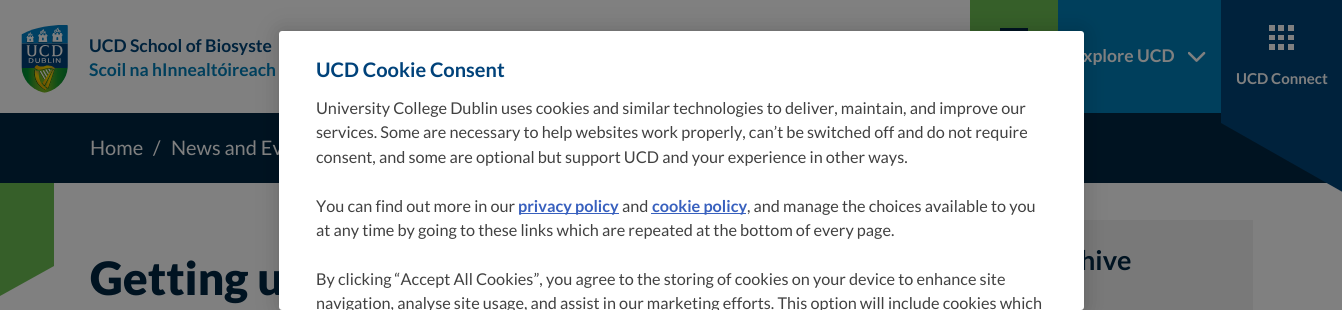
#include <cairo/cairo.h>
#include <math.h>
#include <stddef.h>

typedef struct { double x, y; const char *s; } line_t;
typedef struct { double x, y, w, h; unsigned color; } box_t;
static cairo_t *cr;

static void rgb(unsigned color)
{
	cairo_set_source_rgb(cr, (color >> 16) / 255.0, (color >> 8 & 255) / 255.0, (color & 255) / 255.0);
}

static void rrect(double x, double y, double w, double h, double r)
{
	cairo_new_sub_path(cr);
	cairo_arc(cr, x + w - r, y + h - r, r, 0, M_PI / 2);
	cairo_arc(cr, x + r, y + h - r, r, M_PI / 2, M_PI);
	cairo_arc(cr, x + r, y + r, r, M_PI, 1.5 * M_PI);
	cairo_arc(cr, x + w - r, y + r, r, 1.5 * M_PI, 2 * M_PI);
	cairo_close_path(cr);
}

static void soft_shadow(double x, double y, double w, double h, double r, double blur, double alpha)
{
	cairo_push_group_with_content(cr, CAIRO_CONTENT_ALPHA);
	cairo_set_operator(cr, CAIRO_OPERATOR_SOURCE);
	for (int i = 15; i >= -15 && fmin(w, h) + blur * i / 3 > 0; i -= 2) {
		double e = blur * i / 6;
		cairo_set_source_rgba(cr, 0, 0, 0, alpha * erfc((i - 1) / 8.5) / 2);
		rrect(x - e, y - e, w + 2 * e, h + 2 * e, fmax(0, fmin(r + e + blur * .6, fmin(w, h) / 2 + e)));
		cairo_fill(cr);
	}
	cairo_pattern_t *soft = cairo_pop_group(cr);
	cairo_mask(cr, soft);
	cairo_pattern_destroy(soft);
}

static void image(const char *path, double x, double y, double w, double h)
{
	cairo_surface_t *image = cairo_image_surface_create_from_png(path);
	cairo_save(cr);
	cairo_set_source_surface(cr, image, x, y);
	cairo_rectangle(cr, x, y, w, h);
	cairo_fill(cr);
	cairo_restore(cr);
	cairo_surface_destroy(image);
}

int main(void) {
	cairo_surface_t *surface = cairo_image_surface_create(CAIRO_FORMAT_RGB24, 1342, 310);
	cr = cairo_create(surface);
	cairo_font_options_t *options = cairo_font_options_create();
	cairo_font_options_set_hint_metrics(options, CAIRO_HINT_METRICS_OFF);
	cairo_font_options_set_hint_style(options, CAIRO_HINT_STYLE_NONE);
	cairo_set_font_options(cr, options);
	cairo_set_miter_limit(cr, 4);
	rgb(0x808080);
	cairo_paint(cr);
	image("img/1.png", 21, 25, 47, 68);
	{
		static const box_t items[] = {
			{970, 0, 88, 31, 0x365f29},
			{1000, 28, 28, 3, 0x001321},
			{1058, 0, 163, 113, 0x003f5c},
		};
		for (size_t i = 0; i < sizeof items / sizeof *items; i++) {
			rgb(items[i].color);
			cairo_rectangle(cr, items[i].x, items[i].y, items[i].w, items[i].h);
			cairo_fill(cr);
		}
	}
	image("img/2.png", 1188, 51, 18, 11);
	rgb(0x00223c);
	cairo_rectangle(cr, 1221, 0, 121, 85);
	cairo_fill(cr);
	image("img/3.png", 1269, 25, 25, 25);
	rgb(0x001321);
	cairo_rectangle(cr, 0, 113, 1327, 70);
	cairo_fill(cr);
	rgb(0x00223c);
	cairo_new_path(cr);
	cairo_move_to(cr, 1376, 211);
	cairo_line_to(cr, 1221, 123);
	cairo_line_to(cr, 1221, 85);
	cairo_line_to(cr, 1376, 85);
	cairo_close_path(cr);
	cairo_fill(cr);
	rgb(0x797979);
	cairo_rectangle(cr, 1081, 220, 172, 90);
	cairo_fill(cr);
	rgb(0x000000);
	soft_shadow(279, 31, 805, 279, 3, 11, 0.2);
	rgb(0x365f29);
	cairo_new_path(cr);
	cairo_move_to(cr, 54, 266);
	cairo_line_to(cr, 0, 296);
	cairo_line_to(cr, 0, 183);
	cairo_line_to(cr, 54, 183);
	cairo_close_path(cr);
	cairo_fill(cr);
	cairo_select_font_face(cr, "Lato", CAIRO_FONT_SLANT_NORMAL, CAIRO_FONT_WEIGHT_BOLD);
	cairo_set_font_size(cr, 17.5);
	rgb(0x00223c);
	cairo_move_to(cr, 89, 52);
	cairo_show_text(cr, "UCD School of Biosyste");
	rgb(0x003f5c);
	cairo_move_to(cr, 89, 76);
	cairo_show_text(cr, "Scoil na hInnealtóireach");
	rgb(0x808080);
	cairo_move_to(cr, 1083, 62);
	cairo_show_text(cr, "xplore UCD");
	cairo_set_font_size(cr, 15);
	cairo_move_to(cr, 1236, 84);
	cairo_show_text(cr, "UCD Connect");
	cairo_select_font_face(cr, "Lato", CAIRO_FONT_SLANT_NORMAL, CAIRO_FONT_WEIGHT_NORMAL);
	cairo_set_font_size(cr, 20);
	{
		static const line_t items[] = {
			{90, 155, "Home"},
			{153, 155, "/"},
			{171, 155, "News and Ev"},
		};
		for (size_t i = 0; i < sizeof items / sizeof *items; i++) {
			cairo_move_to(cr, items[i].x, items[i].y);
			cairo_show_text(cr, items[i].s);
		}
	}
	cairo_select_font_face(cr, "Lato Black", CAIRO_FONT_SLANT_NORMAL, CAIRO_FONT_WEIGHT_NORMAL);
	cairo_set_font_size(cr, 46);
	rgb(0x001321);
	cairo_move_to(cr, 90, 295);
	cairo_show_text(cr, "Getting u");
	cairo_select_font_face(cr, "Lato", CAIRO_FONT_SLANT_NORMAL, CAIRO_FONT_WEIGHT_BOLD);
	cairo_set_font_size(cr, 27);
	cairo_move_to(cr, 1080, 270);
	cairo_show_text(cr, "hive");
	rgb(0xffffff);
	rrect(279, 31, 805, 279, 3);
	cairo_fill(cr);
	cairo_select_font_face(cr, "Lato", CAIRO_FONT_SLANT_NORMAL, CAIRO_FONT_WEIGHT_NORMAL);
	cairo_set_font_size(cr, 16.25);
	rgb(0x414141);
	{
		static const line_t items[] = {
			{316, 309, "navigation, analyse site usage, and assist in our marketing efforts. This option will include cookies which"},
			{316, 285, "By clicking “Accept All Cookies”, you agree to the storing of cookies on your device to enhance site"},
			{316, 236, "at any time by going to these links which are repeated at the bottom of every page."},
			{747, 212, ", and manage the choices available to you"},
		};
		for (size_t i = 0; i < sizeof items / sizeof *items; i++) {
			cairo_move_to(cr, items[i].x, items[i].y);
			cairo_show_text(cr, items[i].s);
		}
	}
	rgb(0x3860be);
	cairo_rectangle(cr, 651, 213, 95, 1);
	cairo_fill(cr);
	cairo_select_font_face(cr, "Lato", CAIRO_FONT_SLANT_NORMAL, CAIRO_FONT_WEIGHT_BOLD);
	cairo_move_to(cr, 652, 212);
	cairo_show_text(cr, "cookie policy");
	cairo_select_font_face(cr, "Lato", CAIRO_FONT_SLANT_NORMAL, CAIRO_FONT_WEIGHT_NORMAL);
	rgb(0x414141);
	cairo_move_to(cr, 622, 212);
	cairo_show_text(cr, "and");
	rgb(0x3860be);
	cairo_rectangle(cr, 519, 213, 100, 1);
	cairo_fill(cr);
	cairo_select_font_face(cr, "Lato", CAIRO_FONT_SLANT_NORMAL, CAIRO_FONT_WEIGHT_BOLD);
	cairo_move_to(cr, 518, 212);
	cairo_show_text(cr, "privacy policy");
	cairo_select_font_face(cr, "Lato", CAIRO_FONT_SLANT_NORMAL, CAIRO_FONT_WEIGHT_NORMAL);
	rgb(0x414141);
	{
		static const line_t items[] = {
			{316, 212, "You can find out more in our"},
			{316, 163, "consent, and some are optional but support UCD and your experience in other ways."},
			{316, 138, "services. Some are necessary to help websites work properly, can’t be switched off and do not require"},
			{316, 114, "University College Dublin uses cookies and similar technologies to deliver, maintain, and improve our"},
		};
		for (size_t i = 0; i < sizeof items / sizeof *items; i++) {
			cairo_move_to(cr, items[i].x, items[i].y);
			cairo_show_text(cr, items[i].s);
		}
	}
	cairo_select_font_face(cr, "Lato", CAIRO_FONT_SLANT_NORMAL, CAIRO_FONT_WEIGHT_BOLD);
	cairo_set_font_size(cr, 20);
	rgb(0x00427a);
	cairo_move_to(cr, 316, 77);
	cairo_show_text(cr, "UCD Cookie Consent");
	cairo_surface_write_to_png(surface, "page.png");
	cairo_font_options_destroy(options);
	cairo_destroy(cr);
	cairo_surface_destroy(surface);
	return 0;
}
